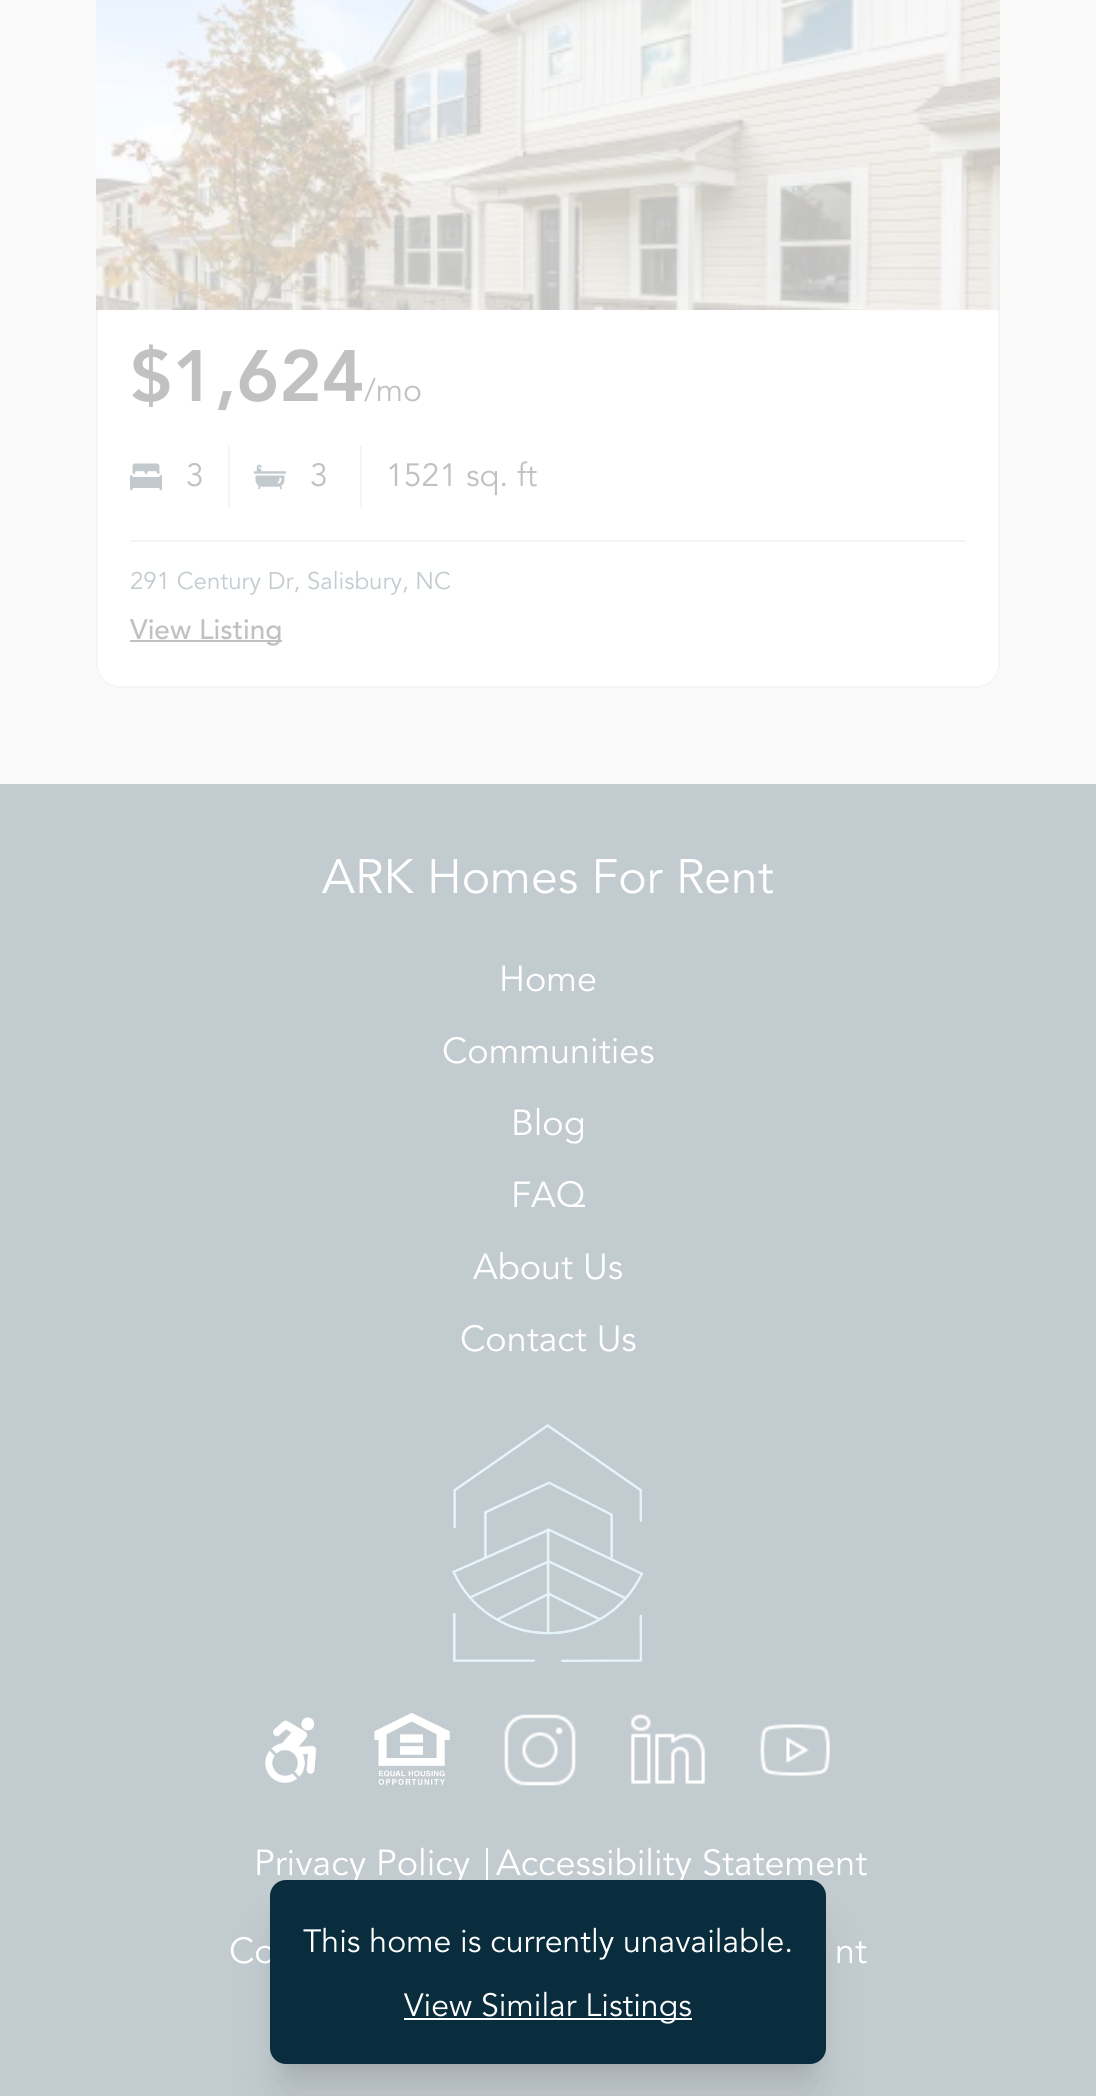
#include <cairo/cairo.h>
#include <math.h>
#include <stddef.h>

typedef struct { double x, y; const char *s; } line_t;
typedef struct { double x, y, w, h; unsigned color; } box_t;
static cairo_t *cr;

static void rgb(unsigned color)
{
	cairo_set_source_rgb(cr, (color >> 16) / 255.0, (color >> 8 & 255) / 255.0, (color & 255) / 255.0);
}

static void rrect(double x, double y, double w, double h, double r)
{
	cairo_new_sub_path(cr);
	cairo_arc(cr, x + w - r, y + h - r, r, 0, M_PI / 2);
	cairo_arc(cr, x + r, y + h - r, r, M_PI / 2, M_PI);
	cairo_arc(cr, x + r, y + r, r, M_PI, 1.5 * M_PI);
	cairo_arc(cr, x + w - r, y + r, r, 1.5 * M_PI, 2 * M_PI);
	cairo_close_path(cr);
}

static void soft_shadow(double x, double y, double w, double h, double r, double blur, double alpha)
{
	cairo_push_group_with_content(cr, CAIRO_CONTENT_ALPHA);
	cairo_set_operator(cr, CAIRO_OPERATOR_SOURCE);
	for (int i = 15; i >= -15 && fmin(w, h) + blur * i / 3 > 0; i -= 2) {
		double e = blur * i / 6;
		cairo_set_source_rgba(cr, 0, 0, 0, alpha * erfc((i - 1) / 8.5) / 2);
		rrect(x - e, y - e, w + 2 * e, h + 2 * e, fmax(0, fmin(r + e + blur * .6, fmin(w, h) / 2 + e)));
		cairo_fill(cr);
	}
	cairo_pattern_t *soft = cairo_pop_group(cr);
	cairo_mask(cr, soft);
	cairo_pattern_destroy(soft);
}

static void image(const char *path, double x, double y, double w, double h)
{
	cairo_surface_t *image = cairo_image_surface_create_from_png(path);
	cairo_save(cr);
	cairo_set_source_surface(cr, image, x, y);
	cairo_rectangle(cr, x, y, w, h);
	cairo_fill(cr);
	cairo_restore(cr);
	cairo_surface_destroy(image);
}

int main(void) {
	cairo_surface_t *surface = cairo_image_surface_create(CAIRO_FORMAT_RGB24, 1096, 2096);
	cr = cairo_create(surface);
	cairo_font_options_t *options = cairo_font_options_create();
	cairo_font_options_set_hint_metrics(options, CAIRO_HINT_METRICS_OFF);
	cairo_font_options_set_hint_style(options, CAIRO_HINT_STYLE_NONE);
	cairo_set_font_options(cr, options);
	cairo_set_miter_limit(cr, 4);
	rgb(0xf9f9f9);
	cairo_paint(cr);
	rgb(0xffffff);
	rrect(96, -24, 904, 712, 24);
	cairo_fill(cr);
	image("img/1.png", 96, 0, 904, 310);
	rgb(0xf4f5f6);
	cairo_set_fill_rule(cr, CAIRO_FILL_RULE_EVEN_ODD);
	cairo_new_path(cr);
	cairo_move_to(cr, 96, 310);
	cairo_line_to(cr, 1000, 310);
	cairo_line_to(cr, 1000, 664);
	cairo_curve_to(cr, 1000, 677, 989, 688, 976, 688);
	cairo_line_to(cr, 120, 688);
	cairo_curve_to(cr, 107, 688, 96, 677, 96, 664);
	cairo_close_path(cr);
	cairo_move_to(cr, 98, 310);
	cairo_line_to(cr, 998, 310);
	cairo_line_to(cr, 998, 664);
	cairo_curve_to(cr, 998, 676, 988, 686, 976, 686);
	cairo_line_to(cr, 120, 686);
	cairo_curve_to(cr, 108, 686, 98, 676, 98, 664);
	cairo_close_path(cr);
	cairo_fill(cr);
	cairo_rectangle(cr, 228, 446, 2, 62);
	cairo_fill(cr);
	image("img/2.png", 130, 463, 32, 28);
	cairo_rectangle(cr, 360, 446, 2, 62);
	cairo_fill(cr);
	image("img/3.png", 254, 464, 32, 26);
	{
		static const box_t items[] = {
			{130, 540, 836, 2, 0xf4f5f6},
			{130, 640, 152, 2, 0xc1c1c1},
			{0, 784, 1096, 1312, 0xc2cbcf},
		};
		for (size_t i = 0; i < sizeof items / sizeof *items; i++) {
			rgb(items[i].color);
			cairo_rectangle(cr, items[i].x, items[i].y, items[i].w, items[i].h);
			cairo_fill(cr);
		}
	}
	image("img/4.png", 452, 1424, 192, 238);
	image("img/5.png", 264, 1717, 53, 66);
	image("img/6.png", 374, 1712, 76, 73);
	image("img/7.png", 504, 1714, 72, 72);
	image("img/8.png", 630, 1714, 76, 70);
	image("img/9.png", 760, 1724, 72, 52);
	rgb(0xffffff);
	cairo_rectangle(cr, 486, 1848, 2, 36);
	cairo_fill(cr);
	rgb(0x000000);
	soft_shadow(282, 1908, 532, 160, 4, 10, 0.1);
	soft_shadow(280, 1930, 536, 164, 6, 25, 0.1);
	cairo_select_font_face(cr, "Avenir Black", CAIRO_FONT_SLANT_NORMAL, CAIRO_FONT_WEIGHT_NORMAL);
	cairo_set_font_size(cr, 72);
	rgb(0xc1c1c1);
	cairo_move_to(cr, 130, 401);
	cairo_show_text(cr, "$1,624");
	cairo_select_font_face(cr, "Avenir", CAIRO_FONT_SLANT_NORMAL, CAIRO_FONT_WEIGHT_NORMAL);
	cairo_set_font_size(cr, 32);
	{
		static const line_t items[] = {
			{364, 401, "/mo"},
			{186, 486, "3"},
			{310, 486, "3"},
			{386, 486, "1521 sq. ft"},
		};
		for (size_t i = 0; i < sizeof items / sizeof *items; i++) {
			cairo_move_to(cr, items[i].x, items[i].y);
			cairo_show_text(cr, items[i].s);
		}
	}
	cairo_set_font_size(cr, 24);
	rgb(0xc2cbcf);
	cairo_move_to(cr, 130, 589);
	cairo_show_text(cr, "291 Century Dr, Salisbury, NC");
	cairo_select_font_face(cr, "Avenir Medium", CAIRO_FONT_SLANT_NORMAL, CAIRO_FONT_WEIGHT_NORMAL);
	cairo_set_font_size(cr, 28);
	rgb(0xc1c1c1);
	cairo_move_to(cr, 130, 639);
	cairo_show_text(cr, "View Listing");
	cairo_select_font_face(cr, "Avenir", CAIRO_FONT_SLANT_NORMAL, CAIRO_FONT_WEIGHT_NORMAL);
	cairo_set_font_size(cr, 48);
	rgb(0xffffff);
	cairo_move_to(cr, 322, 893);
	cairo_show_text(cr, "ARK Homes For Rent");
	cairo_set_font_size(cr, 36);
	{
		static const line_t items[] = {
			{499, 991, "Home"},
			{442, 1063, "Communities"},
			{511, 1135, "Blog"},
			{511, 1207, "FAQ"},
			{473, 1279, "About Us"},
			{460, 1351, "Contact Us"},
			{254, 1875, "Privacy Policy"},
			{496, 1875, "Accessibility Statement"},
			{229, 1963, "Co"},
			{835, 1963, "nt"},
		};
		for (size_t i = 0; i < sizeof items / sizeof *items; i++) {
			cairo_move_to(cr, items[i].x, items[i].y);
			cairo_show_text(cr, items[i].s);
		}
	}
	rgb(0x092d3d);
	rrect(270, 1880, 556, 184, 16);
	cairo_fill(cr);
	cairo_set_font_size(cr, 32);
	rgb(0xffffff);
	cairo_move_to(cr, 303, 1952);
	cairo_show_text(cr, "This home is currently unavailable.");
	cairo_rectangle(cr, 404, 2018, 288, 2);
	cairo_fill(cr);
	cairo_move_to(cr, 404, 2016);
	cairo_show_text(cr, "View Similar Listings");
	cairo_surface_write_to_png(surface, "page.png");
	cairo_font_options_destroy(options);
	cairo_destroy(cr);
	cairo_surface_destroy(surface);
	return 0;
}
